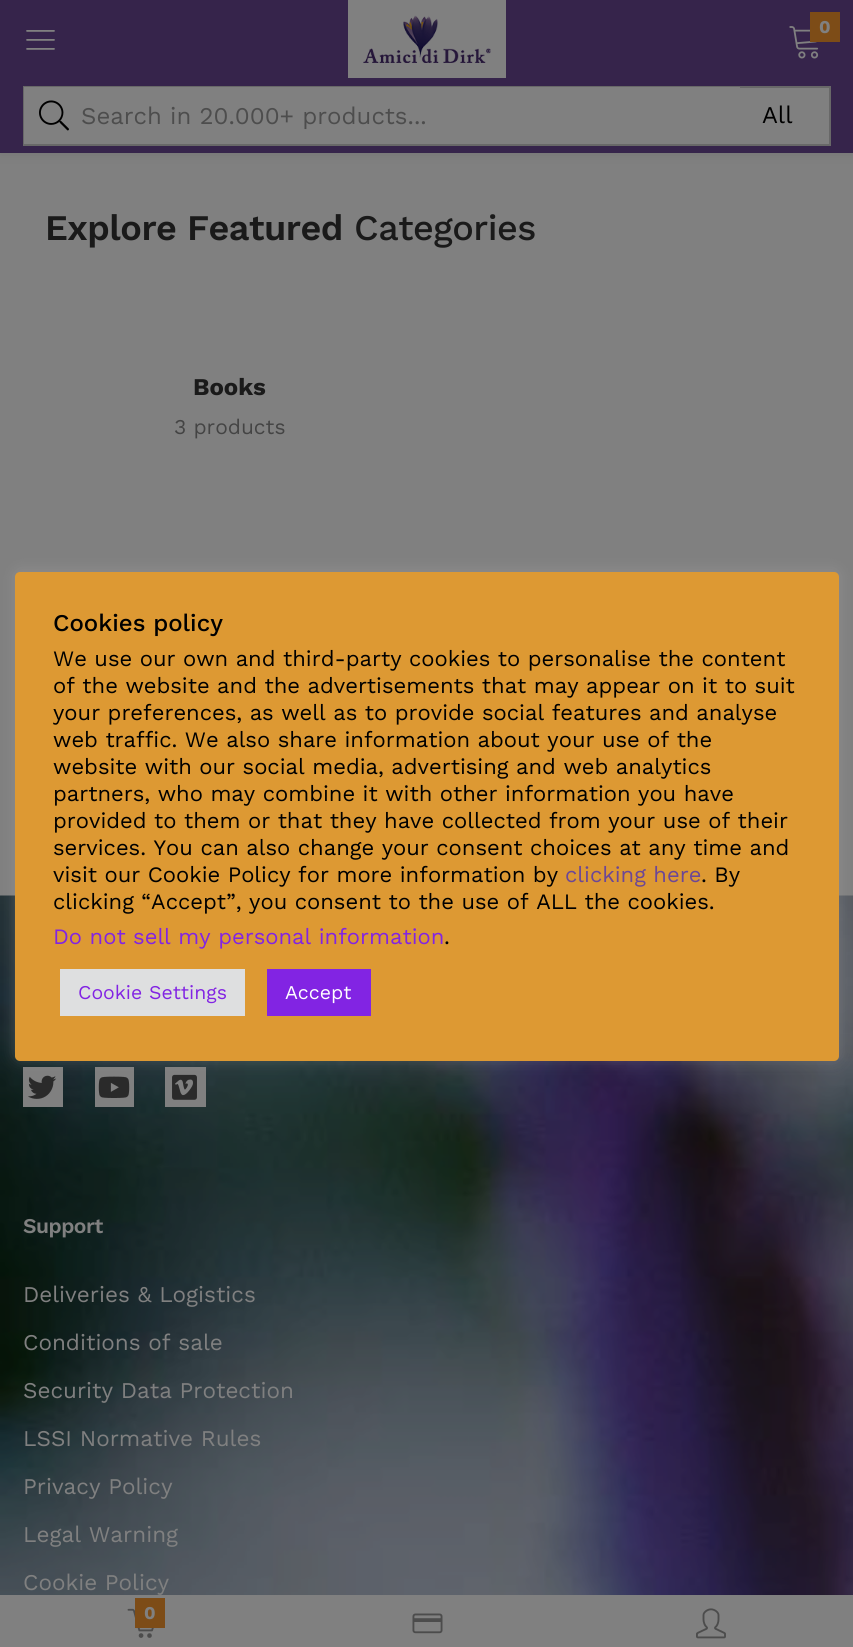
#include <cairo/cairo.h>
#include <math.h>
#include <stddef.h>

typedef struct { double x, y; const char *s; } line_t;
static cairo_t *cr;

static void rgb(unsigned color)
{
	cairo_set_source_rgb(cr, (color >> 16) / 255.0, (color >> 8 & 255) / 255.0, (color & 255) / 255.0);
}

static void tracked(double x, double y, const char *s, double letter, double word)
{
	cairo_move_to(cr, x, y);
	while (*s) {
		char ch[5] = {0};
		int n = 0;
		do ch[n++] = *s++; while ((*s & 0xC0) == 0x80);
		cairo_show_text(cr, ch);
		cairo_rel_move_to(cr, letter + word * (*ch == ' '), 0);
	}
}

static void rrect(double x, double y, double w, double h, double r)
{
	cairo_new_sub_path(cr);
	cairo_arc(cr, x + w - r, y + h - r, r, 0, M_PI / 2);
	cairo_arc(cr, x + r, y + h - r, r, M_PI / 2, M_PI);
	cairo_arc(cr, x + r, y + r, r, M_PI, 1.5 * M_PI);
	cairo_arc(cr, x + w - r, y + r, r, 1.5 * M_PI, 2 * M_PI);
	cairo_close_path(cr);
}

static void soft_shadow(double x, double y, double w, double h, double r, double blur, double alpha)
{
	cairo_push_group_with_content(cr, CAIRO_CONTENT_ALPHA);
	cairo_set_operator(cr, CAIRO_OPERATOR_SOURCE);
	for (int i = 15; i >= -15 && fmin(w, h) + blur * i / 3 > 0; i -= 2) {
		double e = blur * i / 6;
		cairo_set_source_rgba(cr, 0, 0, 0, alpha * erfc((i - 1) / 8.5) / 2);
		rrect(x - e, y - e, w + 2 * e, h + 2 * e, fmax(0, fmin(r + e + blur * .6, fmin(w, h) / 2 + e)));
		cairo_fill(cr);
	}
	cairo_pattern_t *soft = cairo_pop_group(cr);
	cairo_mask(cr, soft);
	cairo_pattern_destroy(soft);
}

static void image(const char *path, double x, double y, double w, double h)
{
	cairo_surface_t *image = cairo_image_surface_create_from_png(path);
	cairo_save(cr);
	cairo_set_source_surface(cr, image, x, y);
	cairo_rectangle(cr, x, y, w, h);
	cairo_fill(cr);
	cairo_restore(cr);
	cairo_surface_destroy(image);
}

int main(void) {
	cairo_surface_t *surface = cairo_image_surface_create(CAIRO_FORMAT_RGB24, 853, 1647);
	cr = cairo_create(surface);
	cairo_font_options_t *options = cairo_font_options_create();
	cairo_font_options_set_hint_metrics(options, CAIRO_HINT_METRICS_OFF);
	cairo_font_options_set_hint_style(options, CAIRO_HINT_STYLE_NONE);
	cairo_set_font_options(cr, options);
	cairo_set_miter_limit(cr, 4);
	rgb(0x808080);
	cairo_paint(cr);
	rgb(0x000000);
	soft_shadow(0, 0, 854, 153, 0, 6, 0.1);
	rgb(0x36244b);
	cairo_rectangle(cr, 0, 0, 853, 153);
	cairo_fill(cr);
	rgb(0x808080);
	cairo_rectangle(cr, 348, 0, 158, 78);
	cairo_fill(cr);
	image("img/1.png", 363, 15, 128, 48);
	image("img/2.png", 789, 26, 30, 33);
	rgb(0x7d4c17);
	cairo_rectangle(cr, 810, 12, 30, 30);
	cairo_fill(cr);
	image("img/3.png", 26, 30, 29, 20);
	rgb(0x808080);
	cairo_rectangle(cr, 740, 88, 89, 56);
	cairo_fill(cr);
	cairo_rectangle(cr, 24, 87, 806, 58);
	rgb(0x686868);
	cairo_stroke(cr);
	rgb(0x808080);
	cairo_rectangle(cr, 24, 87, 716, 57);
	cairo_fill(cr);
	image("img/4.png", 39, 100, 30, 31);
	image("img/5.png", 0, 895, 853, 700);
	cairo_rectangle(cr, 23, 1067, 40, 40);
	cairo_fill(cr);
	image("img/6.png", 28, 1075, 29, 24);
	cairo_rectangle(cr, 95, 1067, 39, 40);
	cairo_fill(cr);
	image("img/7.png", 98, 1076, 32, 22);
	cairo_rectangle(cr, 165, 1067, 41, 40);
	cairo_fill(cr);
	image("img/8.png", 172, 1074, 25, 26);
	image("img/9.png", 127, 1608, 27, 30);
	rgb(0x7d4c17);
	cairo_rectangle(cr, 135, 1598, 30, 30);
	cairo_fill(cr);
	image("img/10.png", 412, 1613, 31, 21);
	image("img/11.png", 696, 1608, 30, 31);
	rgb(0xacabab);
	soft_shadow(15, 570, 824, 489, 5, 7.5, 0.3);
	rgb(0xdd9933);
	rrect(15, 572, 824, 489, 5);
	cairo_fill(cr);
	rgb(0xdedfe0);
	cairo_rectangle(cr, 60, 969, 185, 47);
	cairo_fill(cr);
	rgb(0x8224e3);
	cairo_rectangle(cr, 267, 969, 104, 47);
	cairo_fill(cr);
	cairo_select_font_face(cr, "Work Sans", CAIRO_FONT_SLANT_NORMAL, CAIRO_FONT_WEIGHT_BOLD);
	cairo_set_font_size(cr, 18);
	rgb(0x808080);
	cairo_move_to(cr, 819, 33);
	cairo_show_text(cr, "0");
	cairo_select_font_face(cr, "Work Sans", CAIRO_FONT_SLANT_NORMAL, CAIRO_FONT_WEIGHT_NORMAL);
	cairo_set_font_size(cr, 24);
	rgb(0x4d4d4d);
	cairo_move_to(cr, 81, 124);
	cairo_show_text(cr, "Search in 20.000+ products...");
	rgb(0x000000);
	cairo_move_to(cr, 762, 123);
	cairo_show_text(cr, "All");
	cairo_select_font_face(cr, "Work Sans SemiBold", CAIRO_FONT_SLANT_NORMAL, CAIRO_FONT_WEIGHT_NORMAL);
	cairo_set_font_size(cr, 36);
	rgb(0x1a1a1a);
	tracked(45, 240, "Explore Featured", -0.5, 0);
	cairo_select_font_face(cr, "Work Sans Medium", CAIRO_FONT_SLANT_NORMAL, CAIRO_FONT_WEIGHT_NORMAL);
	tracked(354, 240, "Categories", -0.5, 0);
	cairo_select_font_face(cr, "Work Sans", CAIRO_FONT_SLANT_NORMAL, CAIRO_FONT_WEIGHT_BOLD);
	cairo_set_font_size(cr, 24);
	cairo_move_to(cr, 193, 395);
	cairo_show_text(cr, "Books");
	cairo_select_font_face(cr, "Work Sans", CAIRO_FONT_SLANT_NORMAL, CAIRO_FONT_WEIGHT_NORMAL);
	cairo_set_font_size(cr, 21);
	rgb(0x444444);
	cairo_move_to(cr, 174, 434);
	cairo_show_text(cr, "3 products");
	cairo_select_font_face(cr, "Work Sans SemiBold", CAIRO_FONT_SLANT_NORMAL, CAIRO_FONT_WEIGHT_NORMAL);
	rgb(0x808080);
	tracked(23, 1233, "Support", -0.5, 0);
	cairo_select_font_face(cr, "Work Sans", CAIRO_FONT_SLANT_NORMAL, CAIRO_FONT_WEIGHT_NORMAL);
	cairo_set_font_size(cr, 22.5);
	{
		static const line_t items[] = {
			{23, 1302, "Deliveries & Logistics"},
			{23, 1350, "Conditions of sale"},
			{23, 1398, "Security Data Protection"},
			{23, 1446, "LSSI Normative Rules"},
			{23, 1494, "Privacy Policy"},
			{23, 1542, "Legal Warning"},
			{23, 1590, "Cookie Policy"},
		};
		for (size_t i = 0; i < sizeof items / sizeof *items; i++) {
			cairo_move_to(cr, items[i].x, items[i].y);
			cairo_show_text(cr, items[i].s);
		}
	}
	cairo_select_font_face(cr, "Work Sans", CAIRO_FONT_SLANT_NORMAL, CAIRO_FONT_WEIGHT_BOLD);
	cairo_set_font_size(cr, 18);
	cairo_move_to(cr, 144, 1619);
	cairo_show_text(cr, "0");
	cairo_select_font_face(cr, "Work Sans Medium", CAIRO_FONT_SLANT_NORMAL, CAIRO_FONT_WEIGHT_NORMAL);
	cairo_set_font_size(cr, 24);
	rgb(0x000000);
	cairo_move_to(cr, 53, 631);
	cairo_show_text(cr, "Cookies policy");
	cairo_select_font_face(cr, "Work Sans", CAIRO_FONT_SLANT_NORMAL, CAIRO_FONT_WEIGHT_NORMAL);
	cairo_set_font_size(cr, 22);
	{
		static const line_t items[] = {
			{53, 666, "We use our own and third-party cookies to personalise the content"},
			{53, 693, "of the website and the advertisements that may appear on it to suit"},
			{53, 720, "your preferences, as well as to provide social features and analyse"},
			{53, 747, "web traffic. We also share information about your use of the"},
			{53, 774, "website with our social media, advertising and web analytics"},
			{53, 801, "partners, who may combine it with other information you have"},
			{53, 828, "provided to them or that they have collected from your use of their"},
			{53, 855, "services. You can also change your consent choices at any time and"},
			{53, 882, "visit our Cookie Policy for more information by"},
		};
		for (size_t i = 0; i < sizeof items / sizeof *items; i++) {
			cairo_move_to(cr, items[i].x, items[i].y);
			cairo_show_text(cr, items[i].s);
		}
	}
	rgb(0x6c4796);
	cairo_move_to(cr, 565, 882);
	cairo_show_text(cr, "clicking here");
	rgb(0x000000);
	cairo_move_to(cr, 701, 882);
	cairo_show_text(cr, ". By");
	cairo_move_to(cr, 53, 909);
	cairo_show_text(cr, "clicking “Accept”, you consent to the use of ALL the cookies.");
	rgb(0x8224e3);
	cairo_move_to(cr, 53, 944);
	cairo_show_text(cr, "Do not sell my personal information");
	rgb(0x000000);
	cairo_move_to(cr, 444, 944);
	cairo_show_text(cr, ".");
	cairo_set_font_size(cr, 19.5);
	rgb(0x8224e3);
	cairo_move_to(cr, 78, 999);
	cairo_show_text(cr, "Cookie Settings");
	rgb(0xffffff);
	cairo_move_to(cr, 285, 999);
	cairo_show_text(cr, "Accept");
	cairo_surface_write_to_png(surface, "page.png");
	cairo_font_options_destroy(options);
	cairo_destroy(cr);
	cairo_surface_destroy(surface);
	return 0;
}
